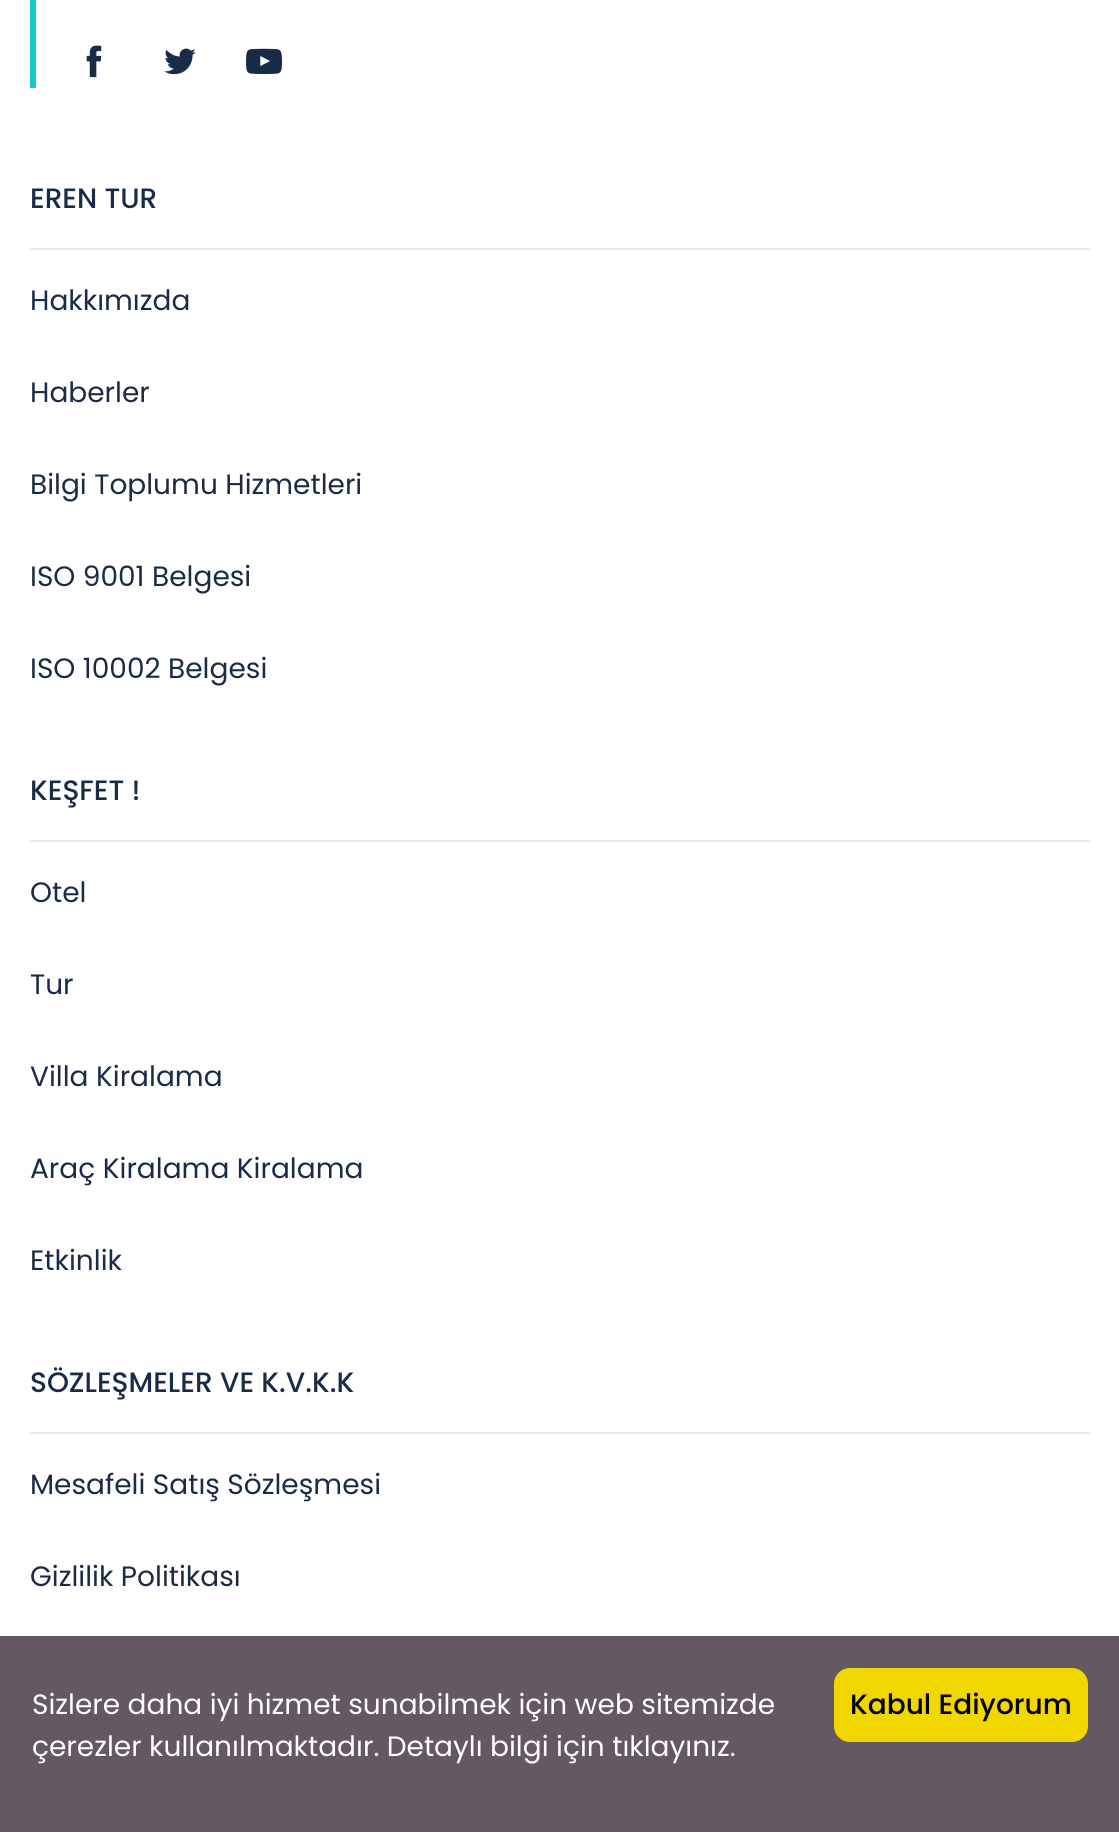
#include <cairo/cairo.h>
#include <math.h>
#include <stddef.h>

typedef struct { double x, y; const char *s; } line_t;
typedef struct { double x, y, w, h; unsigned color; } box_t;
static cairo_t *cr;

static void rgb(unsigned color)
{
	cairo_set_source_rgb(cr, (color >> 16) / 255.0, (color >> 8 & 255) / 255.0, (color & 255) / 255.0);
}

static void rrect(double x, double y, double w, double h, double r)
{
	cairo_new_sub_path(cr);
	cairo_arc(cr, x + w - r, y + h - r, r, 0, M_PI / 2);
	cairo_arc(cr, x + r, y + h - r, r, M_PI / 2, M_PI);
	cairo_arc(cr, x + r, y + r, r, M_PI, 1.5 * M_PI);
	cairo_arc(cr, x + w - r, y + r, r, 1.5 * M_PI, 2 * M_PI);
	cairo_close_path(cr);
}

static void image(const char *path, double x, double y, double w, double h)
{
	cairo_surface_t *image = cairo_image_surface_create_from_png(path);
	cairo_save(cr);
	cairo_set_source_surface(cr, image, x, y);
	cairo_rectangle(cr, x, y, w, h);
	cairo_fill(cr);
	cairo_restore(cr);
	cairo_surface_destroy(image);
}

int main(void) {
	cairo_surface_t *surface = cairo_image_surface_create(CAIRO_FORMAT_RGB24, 1119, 1832);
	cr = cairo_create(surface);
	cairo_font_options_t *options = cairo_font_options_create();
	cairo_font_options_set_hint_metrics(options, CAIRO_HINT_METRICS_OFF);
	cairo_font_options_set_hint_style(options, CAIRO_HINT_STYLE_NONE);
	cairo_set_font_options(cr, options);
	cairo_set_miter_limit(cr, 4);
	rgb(0xffffff);
	cairo_paint(cr);
	rgb(0x14c9c8);
	cairo_rectangle(cr, 30, 0, 6, 88);
	cairo_fill(cr);
	image("img/1.png", 86, 45, 16, 33);
	image("img/2.png", 164, 48, 32, 27);
	image("img/3.png", 246, 48, 36, 26);
	{
		static const box_t items[] = {
			{30, 248, 1060, 2, 0xebebeb},
			{30, 840, 1060, 2, 0xebebeb},
			{30, 1432, 1060, 2, 0xebebeb},
			{0, 1636, 1119, 196, 0x645862},
		};
		for (size_t i = 0; i < sizeof items / sizeof *items; i++) {
			rgb(items[i].color);
			cairo_rectangle(cr, items[i].x, items[i].y, items[i].w, items[i].h);
			cairo_fill(cr);
		}
	}
	rgb(0xf1d700);
	rrect(834, 1668, 254, 74, 16);
	cairo_fill(cr);
	cairo_select_font_face(cr, "Poppins Medium", CAIRO_FONT_SLANT_NORMAL, CAIRO_FONT_WEIGHT_NORMAL);
	cairo_set_font_size(cr, 28);
	rgb(0x1a2b48);
	cairo_move_to(cr, 30, 208);
	cairo_show_text(cr, "EREN TUR");
	cairo_select_font_face(cr, "Poppins", CAIRO_FONT_SLANT_NORMAL, CAIRO_FONT_WEIGHT_NORMAL);
	{
		static const line_t items[] = {
			{30, 310, "Hakkımızda"},
			{30, 402, "Haberler"},
			{30, 494, "Bilgi Toplumu Hizmetleri"},
			{30, 586, "ISO 9001 Belgesi"},
			{30, 678, "ISO 10002 Belgesi"},
		};
		for (size_t i = 0; i < sizeof items / sizeof *items; i++) {
			cairo_move_to(cr, items[i].x, items[i].y);
			cairo_show_text(cr, items[i].s);
		}
	}
	cairo_select_font_face(cr, "Poppins Medium", CAIRO_FONT_SLANT_NORMAL, CAIRO_FONT_WEIGHT_NORMAL);
	cairo_move_to(cr, 30, 800);
	cairo_show_text(cr, "KEŞFET !");
	cairo_select_font_face(cr, "Poppins", CAIRO_FONT_SLANT_NORMAL, CAIRO_FONT_WEIGHT_NORMAL);
	{
		static const line_t items[] = {
			{30, 902, "Otel"},
			{30, 994, "Tur"},
			{30, 1086, "Villa Kiralama"},
			{30, 1178, "Araç Kiralama Kiralama"},
			{30, 1270, "Etkinlik"},
		};
		for (size_t i = 0; i < sizeof items / sizeof *items; i++) {
			cairo_move_to(cr, items[i].x, items[i].y);
			cairo_show_text(cr, items[i].s);
		}
	}
	cairo_select_font_face(cr, "Poppins Medium", CAIRO_FONT_SLANT_NORMAL, CAIRO_FONT_WEIGHT_NORMAL);
	cairo_move_to(cr, 30, 1392);
	cairo_show_text(cr, "SÖZLEŞMELER VE K.V.K.K");
	cairo_select_font_face(cr, "Poppins", CAIRO_FONT_SLANT_NORMAL, CAIRO_FONT_WEIGHT_NORMAL);
	cairo_move_to(cr, 30, 1494);
	cairo_show_text(cr, "Mesafeli Satış Sözleşmesi");
	cairo_move_to(cr, 30, 1586);
	cairo_show_text(cr, "Gizlilik Politikası");
	rgb(0xffffff);
	cairo_move_to(cr, 32, 1714);
	cairo_show_text(cr, "Sizlere daha iyi hizmet sunabilmek için web sitemizde");
	cairo_move_to(cr, 32, 1756);
	cairo_show_text(cr, "çerezler kullanılmaktadır. Detaylı bilgi için tıklayınız.");
	cairo_select_font_face(cr, "Poppins Medium", CAIRO_FONT_SLANT_NORMAL, CAIRO_FONT_WEIGHT_NORMAL);
	rgb(0x000000);
	cairo_move_to(cr, 850, 1714);
	cairo_show_text(cr, "Kabul Ediyorum");
	cairo_surface_write_to_png(surface, "page.png");
	cairo_font_options_destroy(options);
	cairo_destroy(cr);
	cairo_surface_destroy(surface);
	return 0;
}
